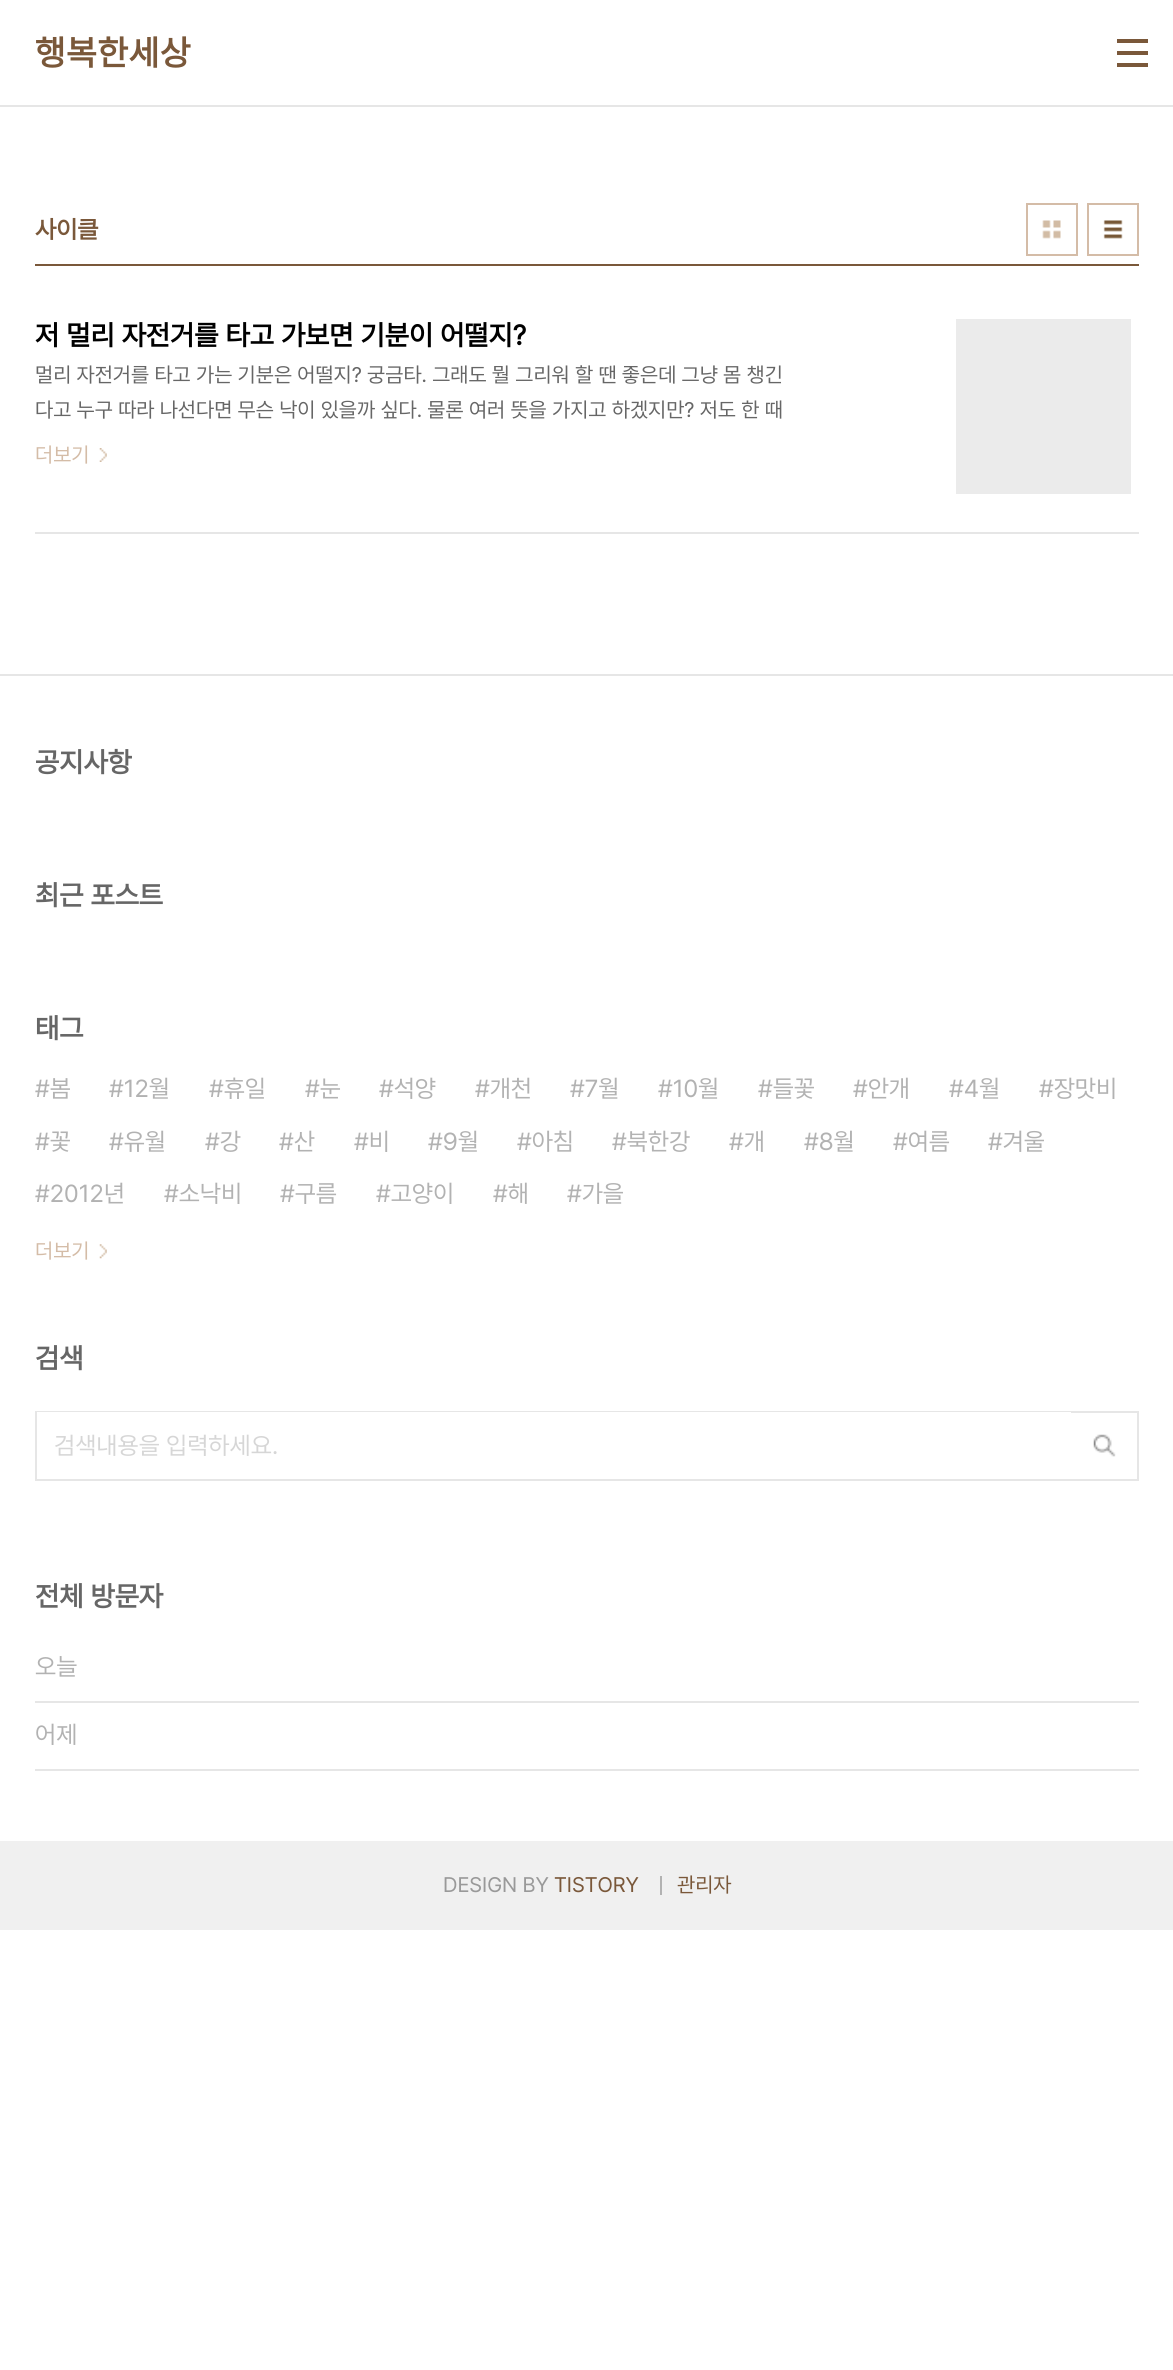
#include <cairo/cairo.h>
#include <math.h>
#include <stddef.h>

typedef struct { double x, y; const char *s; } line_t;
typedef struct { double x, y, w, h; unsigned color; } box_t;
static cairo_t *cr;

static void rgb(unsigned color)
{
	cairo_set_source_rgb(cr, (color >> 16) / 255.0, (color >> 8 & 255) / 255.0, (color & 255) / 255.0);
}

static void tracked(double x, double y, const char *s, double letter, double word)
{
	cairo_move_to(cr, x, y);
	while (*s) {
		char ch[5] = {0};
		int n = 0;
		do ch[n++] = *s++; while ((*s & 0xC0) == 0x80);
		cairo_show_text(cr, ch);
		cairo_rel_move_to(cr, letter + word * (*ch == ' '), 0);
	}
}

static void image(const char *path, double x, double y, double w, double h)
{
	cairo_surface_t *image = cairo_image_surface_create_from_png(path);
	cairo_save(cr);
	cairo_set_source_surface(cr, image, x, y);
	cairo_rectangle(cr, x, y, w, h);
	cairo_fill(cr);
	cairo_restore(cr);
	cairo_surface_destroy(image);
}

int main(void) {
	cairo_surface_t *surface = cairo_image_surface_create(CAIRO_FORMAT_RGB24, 1173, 2370);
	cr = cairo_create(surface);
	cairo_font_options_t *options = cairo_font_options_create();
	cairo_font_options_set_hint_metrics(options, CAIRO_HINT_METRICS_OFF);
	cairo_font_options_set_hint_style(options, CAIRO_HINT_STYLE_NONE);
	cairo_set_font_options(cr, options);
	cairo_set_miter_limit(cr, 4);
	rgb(0xffffff);
	cairo_paint(cr);
	{
		static const box_t items[] = {
			{0, 105, 1173, 2, 0xe6e6e6},
			{1117, 39, 31, 4, 0x7a583a},
			{1117, 51, 31, 4, 0x7a583a},
			{1117, 63, 31, 4, 0x7a583a},
			{35, 264, 1104, 2, 0x7a583a},
		};
		for (size_t i = 0; i < sizeof items / sizeof *items; i++) {
			rgb(items[i].color);
			cairo_rectangle(cr, items[i].x, items[i].y, items[i].w, items[i].h);
			cairo_fill(cr);
		}
	}
	image("img/1.png", 1042, 220, 19, 19);
	cairo_rectangle(cr, 1027, 204, 50, 51);
	rgb(0xd4bca7);
	cairo_stroke(cr);
	image("img/2.png", 1103, 220, 20, 19);
	cairo_rectangle(cr, 1088, 204, 50, 51);
	cairo_stroke(cr);
	rgb(0xe6e6e6);
	cairo_rectangle(cr, 35, 532, 1104, 2);
	cairo_fill(cr);
	rgb(0xebebeb);
	cairo_rectangle(cr, 956, 319, 175, 175);
	cairo_fill(cr);
	image("img/3.png", 99, 448, 8, 14);
	rgb(0xe6e6e6);
	cairo_rectangle(cr, 0, 674, 1173, 2);
	cairo_fill(cr);
	image("img/4.png", 99, 1244, 8, 15);
	cairo_rectangle(cr, 36, 1412, 1102, 68);
	cairo_stroke(cr);
	rgb(0xffffff);
	cairo_rectangle(cr, 37, 1412, 1034, 1);
	cairo_fill(cr);
	image("img/5.png", 1093, 1434, 23, 23);
	{
		static const box_t items[] = {
			{35, 1701, 1104, 2, 0xe6e6e6},
			{35, 1769, 1104, 2, 0xe6e6e6},
			{0, 1841, 1173, 89, 0xf0f0f0},
			{660, 1876, 2, 19, 0xb2b2b2},
		};
		for (size_t i = 0; i < sizeof items / sizeof *items; i++) {
			rgb(items[i].color);
			cairo_rectangle(cr, items[i].x, items[i].y, items[i].w, items[i].h);
			cairo_fill(cr);
		}
	}
	cairo_select_font_face(cr, "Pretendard", CAIRO_FONT_SLANT_NORMAL, CAIRO_FONT_WEIGHT_BOLD);
	cairo_set_font_size(cr, 35);
	rgb(0x7a583a);
	tracked(35, 65, "행복한세상", 1, 0);
	cairo_set_font_size(cr, 24.5);
	cairo_move_to(cr, 35, 238);
	cairo_show_text(cr, "사이클");
	cairo_set_font_size(cr, 28);
	rgb(0x000000);
	cairo_move_to(cr, 35, 345);
	cairo_show_text(cr, "저 멀리 자전거를 타고 가보면 기분이 어떨지?");
	cairo_select_font_face(cr, "Pretendard", CAIRO_FONT_SLANT_NORMAL, CAIRO_FONT_WEIGHT_NORMAL);
	cairo_set_font_size(cr, 21);
	rgb(0x666666);
	cairo_move_to(cr, 35, 382);
	cairo_show_text(cr, "멀리 자전거를 타고 가는 기분은 어떨지? 궁금타. 그래도 뭘 그리워 할 땐 좋은데 그냥 몸 챙긴");
	cairo_move_to(cr, 35, 417);
	cairo_show_text(cr, "다고 누구 따라 나선다면 무슨 낙이 있을까 싶다. 물론 여러 뜻을 가지고 하겠지만? 저도 한 때");
	rgb(0xd4bca7);
	cairo_move_to(cr, 35, 462);
	cairo_show_text(cr, "더보기");
	cairo_select_font_face(cr, "Pretendard", CAIRO_FONT_SLANT_NORMAL, CAIRO_FONT_WEIGHT_BOLD);
	cairo_set_font_size(cr, 28);
	rgb(0x666666);
	{
		static const line_t items[] = {
			{35, 772, "공지사항"},
			{35, 905, "최근 포스트"},
			{35, 1038, "태그"},
		};
		for (size_t i = 0; i < sizeof items / sizeof *items; i++) {
			cairo_move_to(cr, items[i].x, items[i].y);
			cairo_show_text(cr, items[i].s);
		}
	}
	cairo_select_font_face(cr, "Pretendard", CAIRO_FONT_SLANT_NORMAL, CAIRO_FONT_WEIGHT_NORMAL);
	cairo_set_font_size(cr, 24.5);
	rgb(0xb2b2b2);
	{
		static const line_t items[] = {
			{35, 1097, "#봄"},
			{109, 1097, "#12월"},
			{209, 1097, "#휴일"},
			{305, 1097, "#눈"},
			{379, 1097, "#석양"},
			{475, 1097, "#개천"},
			{570, 1097, "#7월"},
			{658, 1097, "#10월"},
			{758, 1097, "#들꽃"},
			{853, 1097, "#안개"},
			{949, 1097, "#4월"},
			{1039, 1097, "#장맛비"},
			{35, 1150, "#꽃"},
			{109, 1150, "#유월"},
			{205, 1150, "#강"},
			{279, 1150, "#산"},
			{354, 1150, "#비"},
			{428, 1150, "#9월"},
			{517, 1150, "#아침"},
			{612, 1150, "#북한강"},
			{729, 1150, "#개"},
			{804, 1150, "#8월"},
			{893, 1150, "#여름"},
			{988, 1150, "#겨울"},
			{35, 1202, "#2012년"},
			{164, 1202, "#소낙비"},
			{280, 1202, "#구름"},
			{376, 1202, "#고양이"},
			{493, 1202, "#해"},
			{567, 1202, "#가을"},
		};
		for (size_t i = 0; i < sizeof items / sizeof *items; i++) {
			cairo_move_to(cr, items[i].x, items[i].y);
			cairo_show_text(cr, items[i].s);
		}
	}
	cairo_set_font_size(cr, 21);
	rgb(0xd4bca7);
	cairo_move_to(cr, 35, 1258);
	cairo_show_text(cr, "더보기");
	cairo_select_font_face(cr, "Pretendard", CAIRO_FONT_SLANT_NORMAL, CAIRO_FONT_WEIGHT_BOLD);
	cairo_set_font_size(cr, 28);
	rgb(0x666666);
	cairo_move_to(cr, 35, 1368);
	cairo_show_text(cr, "검색");
	cairo_select_font_face(cr, "Pretendard", CAIRO_FONT_SLANT_NORMAL, CAIRO_FONT_WEIGHT_NORMAL);
	cairo_set_font_size(cr, 24.5);
	rgb(0xd6d6d6);
	cairo_move_to(cr, 54, 1454);
	cairo_show_text(cr, "검색내용을 입력하세요.");
	cairo_select_font_face(cr, "Pretendard", CAIRO_FONT_SLANT_NORMAL, CAIRO_FONT_WEIGHT_BOLD);
	cairo_set_font_size(cr, 28);
	rgb(0x666666);
	cairo_move_to(cr, 35, 1606);
	cairo_show_text(cr, "전체 방문자");
	cairo_select_font_face(cr, "Pretendard", CAIRO_FONT_SLANT_NORMAL, CAIRO_FONT_WEIGHT_NORMAL);
	cairo_set_font_size(cr, 24.5);
	rgb(0xb2b2b2);
	cairo_move_to(cr, 35, 1675);
	cairo_show_text(cr, "오늘");
	cairo_move_to(cr, 35, 1743);
	cairo_show_text(cr, "어제");
	cairo_set_font_size(cr, 21);
	rgb(0x999999);
	cairo_move_to(cr, 443, 1892);
	cairo_show_text(cr, "DESIGN BY");
	rgb(0x7a583a);
	cairo_move_to(cr, 554, 1892);
	cairo_show_text(cr, "TISTORY");
	cairo_move_to(cr, 677, 1892);
	cairo_show_text(cr, "관리자");
	cairo_surface_write_to_png(surface, "page.png");
	cairo_font_options_destroy(options);
	cairo_destroy(cr);
	cairo_surface_destroy(surface);
	return 0;
}
